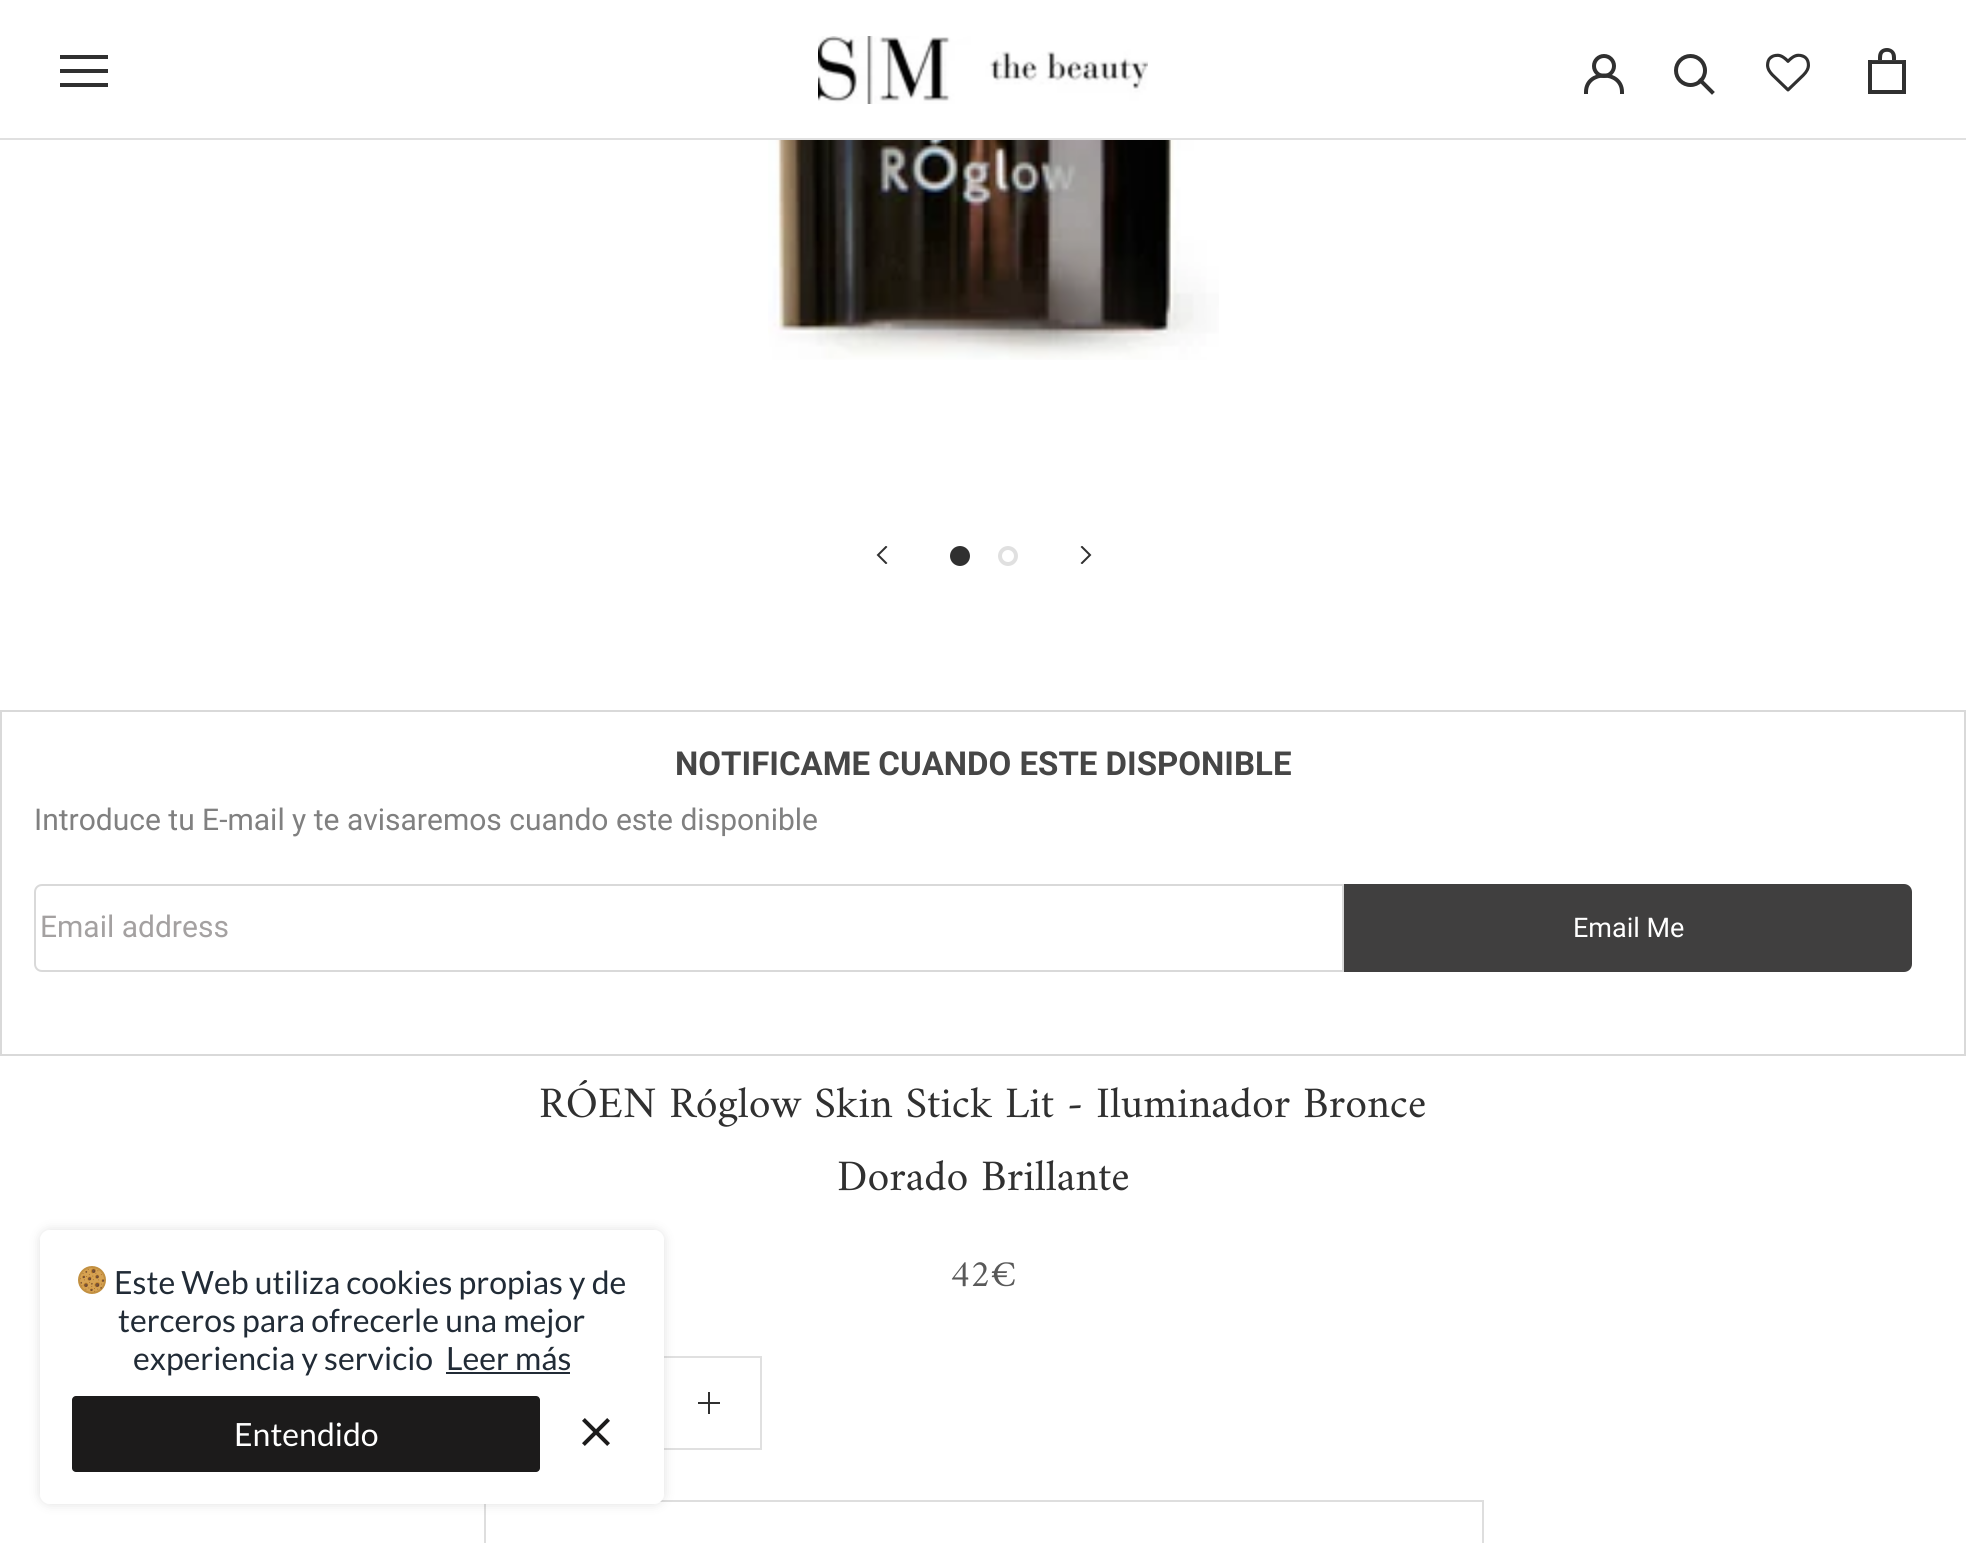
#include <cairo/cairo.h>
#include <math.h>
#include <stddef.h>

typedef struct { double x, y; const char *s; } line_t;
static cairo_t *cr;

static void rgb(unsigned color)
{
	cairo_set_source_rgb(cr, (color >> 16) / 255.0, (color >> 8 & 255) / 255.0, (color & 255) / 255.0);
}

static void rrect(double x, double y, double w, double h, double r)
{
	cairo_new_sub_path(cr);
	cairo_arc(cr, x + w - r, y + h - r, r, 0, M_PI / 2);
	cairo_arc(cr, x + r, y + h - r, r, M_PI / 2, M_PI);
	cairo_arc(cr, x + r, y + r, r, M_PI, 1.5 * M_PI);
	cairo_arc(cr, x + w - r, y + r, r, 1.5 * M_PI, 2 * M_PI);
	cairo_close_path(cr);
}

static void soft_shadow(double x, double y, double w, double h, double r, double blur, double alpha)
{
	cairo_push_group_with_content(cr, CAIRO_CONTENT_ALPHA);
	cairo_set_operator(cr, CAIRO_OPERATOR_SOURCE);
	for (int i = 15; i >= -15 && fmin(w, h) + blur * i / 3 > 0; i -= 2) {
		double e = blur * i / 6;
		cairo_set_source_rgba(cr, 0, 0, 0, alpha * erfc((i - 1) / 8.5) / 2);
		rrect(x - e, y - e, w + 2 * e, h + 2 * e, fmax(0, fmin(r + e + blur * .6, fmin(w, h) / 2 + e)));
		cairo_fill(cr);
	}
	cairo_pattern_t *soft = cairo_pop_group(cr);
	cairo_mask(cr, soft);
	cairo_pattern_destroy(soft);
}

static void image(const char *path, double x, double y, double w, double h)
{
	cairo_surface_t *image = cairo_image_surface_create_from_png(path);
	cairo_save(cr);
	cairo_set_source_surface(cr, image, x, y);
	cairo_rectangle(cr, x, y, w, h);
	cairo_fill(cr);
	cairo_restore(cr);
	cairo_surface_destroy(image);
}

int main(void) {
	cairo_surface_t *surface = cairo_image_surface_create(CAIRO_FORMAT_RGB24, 1966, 1543);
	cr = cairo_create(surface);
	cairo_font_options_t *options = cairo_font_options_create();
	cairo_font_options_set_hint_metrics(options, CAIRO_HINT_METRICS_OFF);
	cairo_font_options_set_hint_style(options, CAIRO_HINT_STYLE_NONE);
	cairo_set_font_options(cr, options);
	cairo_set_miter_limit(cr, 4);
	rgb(0xffffff);
	cairo_paint(cr);
	rgb(0xe0e0e0);
	cairo_rectangle(cr, 0, 138, 1966, 2);
	cairo_fill(cr);
	rgb(0x303030);
	cairo_new_path(cr);
	cairo_move_to(cr, 60, 87);
	cairo_line_to(cr, 60, 83);
	cairo_line_to(cr, 108, 83);
	cairo_line_to(cr, 108, 87);
	cairo_close_path(cr);
	cairo_move_to(cr, 60, 69);
	cairo_line_to(cr, 108, 69);
	cairo_line_to(cr, 108, 73);
	cairo_line_to(cr, 60, 73);
	cairo_close_path(cr);
	cairo_move_to(cr, 60, 55);
	cairo_line_to(cr, 108, 55);
	cairo_line_to(cr, 108, 59);
	cairo_line_to(cr, 60, 59);
	cairo_close_path(cr);
	cairo_fill(cr);
	image("img/1.png", 818, 36, 330, 68);
	cairo_new_path(cr);
	cairo_move_to(cr, 1586, 92);
	cairo_curve_to(cr, 1586, 70, 1622, 70, 1622, 92);
	cairo_set_line_width(cr, 4);
	cairo_set_line_cap(cr, CAIRO_LINE_CAP_SQUARE);
	cairo_stroke(cr);
	cairo_arc(cr, 1604, 66, 10, 0, 2 * M_PI);
	cairo_set_line_cap(cr, CAIRO_LINE_CAP_BUTT);
	cairo_stroke(cr);
	cairo_new_path(cr);
	cairo_move_to(cr, 1712, 92);
	cairo_line_to(cr, 1700.5, 80.5);
	cairo_set_line_cap(cr, CAIRO_LINE_CAP_SQUARE);
	cairo_stroke(cr);
	cairo_arc(cr, 1690.5, 70.5, 14.5, 0, 2 * M_PI);
	cairo_set_line_cap(cr, CAIRO_LINE_CAP_BUTT);
	cairo_stroke(cr);
	image("img/2.png", 1766, 53, 44, 39);
	image("img/3.png", 1868, 48, 38, 46);
	image("img/4.png", 768, 140, 451, 220);
	cairo_save(cr);
	cairo_rectangle(cr, 876, 546, 12, 18);
	cairo_clip(cr);
	cairo_new_path(cr);
	cairo_move_to(cr, 886, 563);
	cairo_line_to(cr, 878, 555);
	cairo_line_to(cr, 886, 547);
	cairo_set_line_width(cr, 2);
	cairo_set_line_cap(cr, CAIRO_LINE_CAP_SQUARE);
	cairo_stroke(cr);
	cairo_restore(cr);
	cairo_arc(cr, 960, 556, 8, 0, 2 * M_PI);
	cairo_fill_preserve(cr);
	cairo_stroke(cr);
	cairo_arc(cr, 1008, 556, 8, 0, 2 * M_PI);
	rgb(0xe0e0e0);
	cairo_stroke(cr);
	cairo_save(cr);
	cairo_rectangle(cr, 1080, 546, 12, 18);
	cairo_clip(cr);
	cairo_new_path(cr);
	cairo_move_to(cr, 1082, 563);
	cairo_line_to(cr, 1090, 555);
	cairo_line_to(cr, 1082, 547);
	rgb(0x303030);
	cairo_set_line_width(cr, 2);
	cairo_set_line_cap(cr, CAIRO_LINE_CAP_SQUARE);
	cairo_stroke(cr);
	cairo_restore(cr);
	cairo_rectangle(cr, 1, 711, 1964, 344);
	rgb(0xd9d9d9);
	cairo_set_line_width(cr, 2);
	cairo_stroke(cr);
	cairo_new_path(cr);
	cairo_move_to(cr, 42, 885);
	cairo_line_to(cr, 1343, 885);
	cairo_line_to(cr, 1343, 971);
	cairo_line_to(cr, 42, 971);
	cairo_curve_to(cr, 38, 971, 35, 968, 35, 964);
	cairo_line_to(cr, 35, 892);
	cairo_curve_to(cr, 35, 888, 38, 885, 42, 885);
	cairo_close_path(cr);
	cairo_stroke(cr);
	rgb(0x403f3f);
	cairo_new_path(cr);
	cairo_move_to(cr, 1344, 884);
	cairo_line_to(cr, 1904, 884);
	cairo_curve_to(cr, 1908.5, 884, 1912, 887.5, 1912, 892);
	cairo_line_to(cr, 1912, 964);
	cairo_curve_to(cr, 1912, 968.5, 1908.5, 972, 1904, 972);
	cairo_line_to(cr, 1344, 972);
	cairo_close_path(cr);
	cairo_fill(cr);
	cairo_rectangle(cr, 485, 1357, 276, 92);
	rgb(0xe0e0e0);
	cairo_stroke(cr);
	rgb(0x303030);
	cairo_rectangle(cr, 708, 1392, 2, 22);
	cairo_fill(cr);
	cairo_rectangle(cr, 698, 1402, 22, 2);
	cairo_fill(cr);
	cairo_rectangle(cr, 485, 1501, 998, 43);
	rgb(0xdedede);
	cairo_stroke(cr);
	rgb(0xffffff);
	rrect(40, 1230, 624, 274, 10);
	cairo_fill(cr);
	cairo_save(cr);
	cairo_set_fill_rule(cr, CAIRO_FILL_RULE_EVEN_ODD);
	cairo_new_path(cr);
	cairo_move_to(cr, 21, 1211);
	cairo_line_to(cr, 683, 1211);
	cairo_line_to(cr, 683, 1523);
	cairo_line_to(cr, 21, 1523);
	cairo_close_path(cr);
	cairo_move_to(cr, 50, 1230);
	cairo_line_to(cr, 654, 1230);
	cairo_curve_to(cr, 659.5, 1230, 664, 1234.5, 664, 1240);
	cairo_line_to(cr, 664, 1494);
	cairo_curve_to(cr, 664, 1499.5, 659.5, 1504, 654, 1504);
	cairo_line_to(cr, 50, 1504);
	cairo_curve_to(cr, 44.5, 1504, 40, 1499.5, 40, 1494);
	cairo_line_to(cr, 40, 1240);
	cairo_curve_to(cr, 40, 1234.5, 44.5, 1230, 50, 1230);
	cairo_close_path(cr);
	cairo_clip(cr);
	rgb(0x000000);
	soft_shadow(40, 1230, 624, 274, 10, 6, 0.12);
	cairo_restore(cr);
	image("img/5.png", 78, 1266, 28, 28);
	rgb(0x212b36);
	cairo_rectangle(cr, 446, 1372, 124, 2);
	cairo_fill(cr);
	rgb(0x1c1b1b);
	rrect(72, 1396, 468, 76, 4);
	cairo_fill(cr);
	image("img/6.png", 582, 1418, 28, 28);
	cairo_select_font_face(cr, "Roboto", CAIRO_FONT_SLANT_NORMAL, CAIRO_FONT_WEIGHT_BOLD);
	cairo_set_font_size(cr, 33);
	rgb(0x464646);
	cairo_move_to(cr, 675, 775);
	cairo_show_text(cr, "NOTIFICAME CUANDO ESTE DISPONIBLE");
	cairo_select_font_face(cr, "Roboto", CAIRO_FONT_SLANT_NORMAL, CAIRO_FONT_WEIGHT_NORMAL);
	cairo_set_font_size(cr, 30);
	rgb(0x808080);
	cairo_move_to(cr, 34, 830);
	cairo_show_text(cr, "Introduce tu E-mail y te avisaremos cuando este disponible");
	rgb(0xa4a1a1);
	cairo_move_to(cr, 40, 937);
	cairo_show_text(cr, "Email address");
	cairo_set_font_size(cr, 27);
	rgb(0xffffff);
	cairo_move_to(cr, 1573, 937);
	cairo_show_text(cr, "Email Me");
	cairo_select_font_face(cr, "Amiri", CAIRO_FONT_SLANT_NORMAL, CAIRO_FONT_WEIGHT_NORMAL);
	cairo_set_font_size(cr, 44);
	rgb(0x303030);
	cairo_move_to(cr, 539, 1117);
	cairo_show_text(cr, "RÓEN Róglow Skin Stick Lit - Iluminador Bronce");
	cairo_move_to(cr, 837, 1190);
	cairo_show_text(cr, "Dorado Brillante");
	cairo_set_font_size(cr, 38);
	rgb(0x595959);
	cairo_move_to(cr, 950, 1286);
	cairo_show_text(cr, "42€");
	cairo_select_font_face(cr, "Lato", CAIRO_FONT_SLANT_NORMAL, CAIRO_FONT_WEIGHT_NORMAL);
	cairo_set_font_size(cr, 32);
	rgb(0x212b36);
	{
		static const line_t items[] = {
			{114, 1294, "Este Web utiliza cookies propias y de"},
			{118, 1332, "terceros para ofrecerle una mejor"},
			{133, 1370, "experiencia y servicio"},
			{446, 1370, "Leer más"},
		};
		for (size_t i = 0; i < sizeof items / sizeof *items; i++) {
			cairo_move_to(cr, items[i].x, items[i].y);
			cairo_show_text(cr, items[i].s);
		}
	}
	rgb(0xffffff);
	cairo_move_to(cr, 234, 1446);
	cairo_show_text(cr, "Entendido");
	cairo_surface_write_to_png(surface, "page.png");
	cairo_font_options_destroy(options);
	cairo_destroy(cr);
	cairo_surface_destroy(surface);
	return 0;
}
